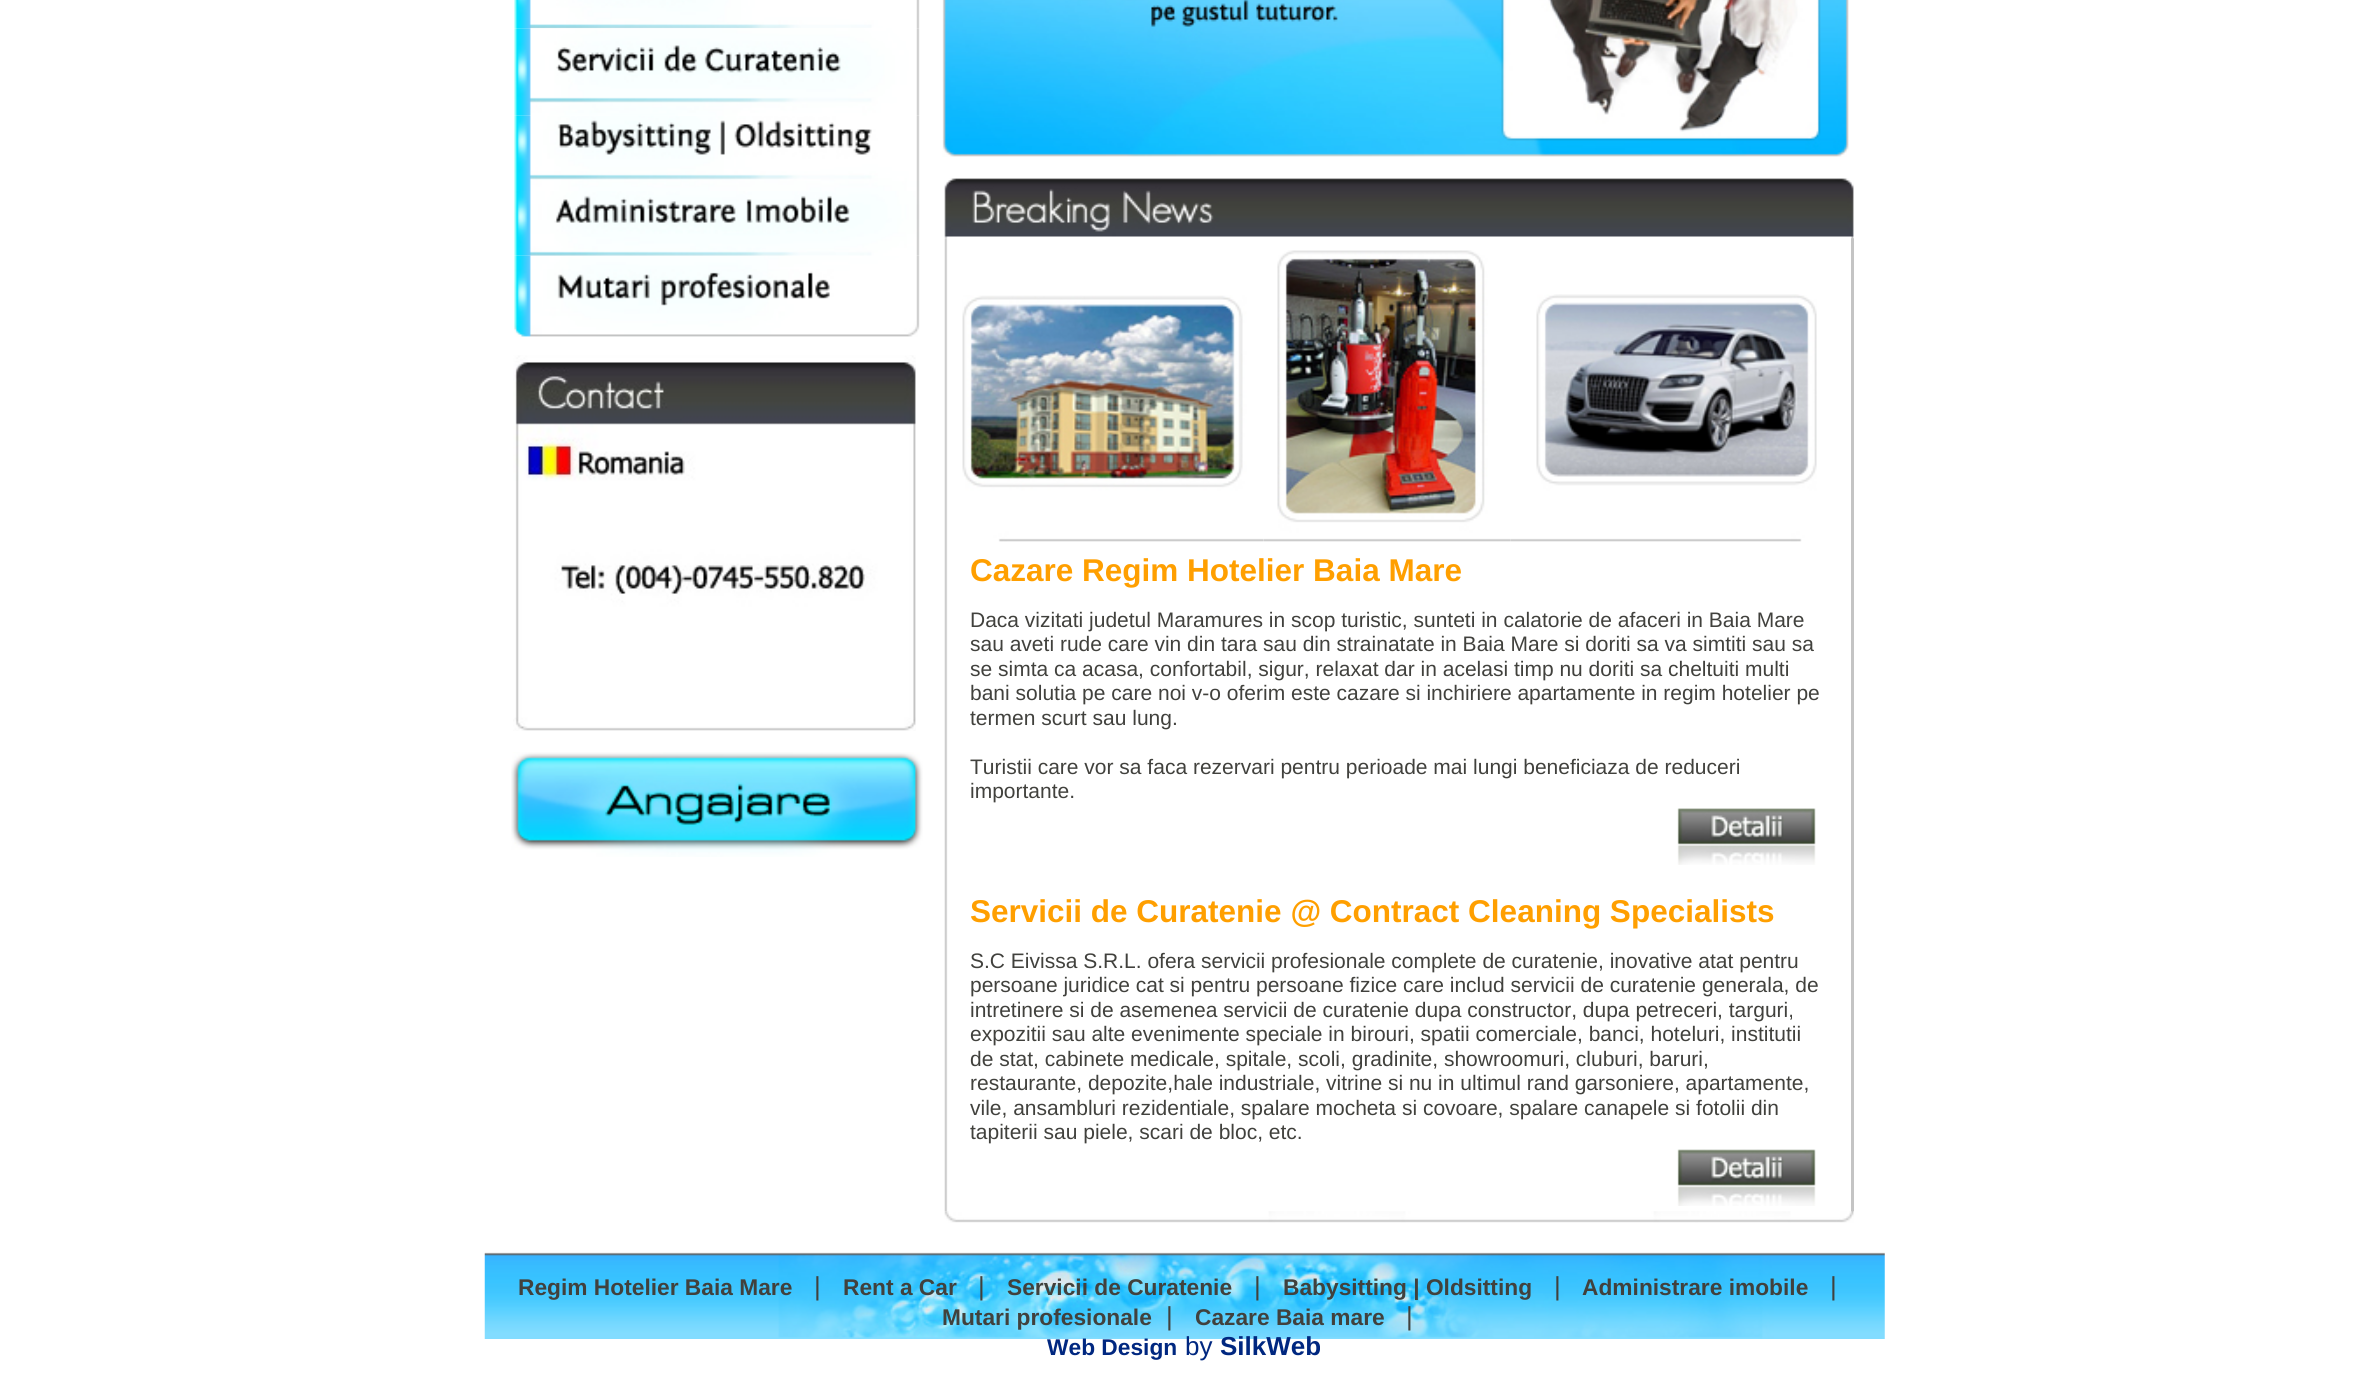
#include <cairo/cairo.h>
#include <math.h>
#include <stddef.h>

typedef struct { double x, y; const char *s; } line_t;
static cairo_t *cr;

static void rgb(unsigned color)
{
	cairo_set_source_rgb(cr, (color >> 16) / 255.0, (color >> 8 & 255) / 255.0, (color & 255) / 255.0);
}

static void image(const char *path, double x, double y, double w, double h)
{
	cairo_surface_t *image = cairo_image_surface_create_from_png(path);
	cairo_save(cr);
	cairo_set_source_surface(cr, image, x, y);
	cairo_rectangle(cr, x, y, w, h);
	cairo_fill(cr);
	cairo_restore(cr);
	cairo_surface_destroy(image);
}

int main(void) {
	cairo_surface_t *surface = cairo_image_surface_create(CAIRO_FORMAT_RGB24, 2369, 1388);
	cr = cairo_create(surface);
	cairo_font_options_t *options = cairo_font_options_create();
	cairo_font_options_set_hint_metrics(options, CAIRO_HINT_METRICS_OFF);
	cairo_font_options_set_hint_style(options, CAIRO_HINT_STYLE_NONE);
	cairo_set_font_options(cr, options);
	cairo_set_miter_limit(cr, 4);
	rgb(0xffffff);
	cairo_paint(cr);
	image("img/1.png", 514, 0, 406, 29);
	image("img/2.png", 514, 28, 406, 88);
	image("img/3.png", 514, 115, 406, 76);
	image("img/4.png", 514, 191, 406, 65);
	image("img/5.png", 514, 255, 406, 82);
	image("img/6.png", 513, 355, 403, 376);
	image("img/7.png", 511, 752, 412, 105);
	image("img/8.png", 942, 0, 907, 157);
	image("img/10.png", 944, 238, 4, 974);
	rgb(0xc4c4c4);
	cairo_rectangle(cr, 1851, 238, 3, 974);
	cairo_fill(cr);
	image("img/9.png", 944, 178, 910, 61);
	image("img/11.png", 962, 295, 302, 247);
	image("img/12.png", 1263, 250, 248, 292);
	image("img/13.png", 1510, 294, 307, 248);
	image("img/14.png", 1677, 808, 139, 57);
	image("img/15.png", 1677, 1149, 139, 57);
	image("img/16.png", 944, 1211, 910, 12);
	image("img/17.png", 484, 1252, 1401, 87);
	cairo_select_font_face(cr, "Liberation Sans", CAIRO_FONT_SLANT_NORMAL, CAIRO_FONT_WEIGHT_BOLD);
	cairo_set_font_size(cr, 31.5);
	rgb(0xff9f00);
	cairo_move_to(cr, 970, 581);
	cairo_show_text(cr, "Cazare Regim Hotelier Baia Mare");
	cairo_select_font_face(cr, "Liberation Sans", CAIRO_FONT_SLANT_NORMAL, CAIRO_FONT_WEIGHT_NORMAL);
	cairo_set_font_size(cr, 21);
	rgb(0x41413d);
	{
		static const line_t items[] = {
			{970, 627, "Daca vizitati judetul Maramures in scop turistic, sunteti in calatorie de afaceri in Baia Mare"},
			{970, 651, "sau aveti rude care vin din tara sau din strainatate in Baia Mare si doriti sa va simtiti sau sa"},
			{970, 676, "se simta ca acasa, confortabil, sigur, relaxat dar in acelasi timp nu doriti sa cheltuiti multi"},
			{970, 700, "bani solutia pe care noi v-o oferim este cazare si inchiriere apartamente in regim hotelier pe"},
			{970, 725, "termen scurt sau lung."},
			{970, 774, "Turistii care vor sa faca rezervari pentru perioade mai lungi beneficiaza de reduceri"},
			{970, 798, "importante."},
		};
		for (size_t i = 0; i < sizeof items / sizeof *items; i++) {
			cairo_move_to(cr, items[i].x, items[i].y);
			cairo_show_text(cr, items[i].s);
		}
	}
	cairo_select_font_face(cr, "Liberation Sans", CAIRO_FONT_SLANT_NORMAL, CAIRO_FONT_WEIGHT_BOLD);
	cairo_set_font_size(cr, 31.5);
	rgb(0xff9f00);
	cairo_move_to(cr, 970, 922);
	cairo_show_text(cr, "Servicii de Curatenie @ Contract Cleaning Specialists");
	cairo_select_font_face(cr, "Liberation Sans", CAIRO_FONT_SLANT_NORMAL, CAIRO_FONT_WEIGHT_NORMAL);
	cairo_set_font_size(cr, 21);
	rgb(0x41413d);
	{
		static const line_t items[] = {
			{970, 968, "S.C Eivissa S.R.L. ofera servicii profesionale complete de curatenie, inovative atat pentru"},
			{970, 992, "persoane juridice cat si pentru persoane fizice care includ servicii de curatenie generala, de"},
			{970, 1017, "intretinere si de asemenea servicii de curatenie dupa constructor, dupa petreceri, targuri,"},
			{970, 1041, "expozitii sau alte evenimente speciale in birouri, spatii comerciale, banci, hoteluri, institutii"},
			{970, 1066, "de stat, cabinete medicale, spitale, scoli, gradinite, showroomuri, cluburi, baruri,"},
			{970, 1090, "restaurante, depozite,hale industriale, vitrine si nu in ultimul rand garsoniere, apartamente,"},
			{970, 1115, "vile, ansambluri rezidentiale, spalare mocheta si covoare, spalare canapele si fotolii din"},
			{970, 1139, "tapiterii sau piele, scari de bloc, etc."},
		};
		for (size_t i = 0; i < sizeof items / sizeof *items; i++) {
			cairo_move_to(cr, items[i].x, items[i].y);
			cairo_show_text(cr, items[i].s);
		}
	}
	cairo_select_font_face(cr, "Liberation Sans", CAIRO_FONT_SLANT_NORMAL, CAIRO_FONT_WEIGHT_BOLD);
	cairo_set_font_size(cr, 22.75);
	cairo_move_to(cr, 518, 1295);
	cairo_show_text(cr, "Regim Hotelier Baia Mare");
	cairo_select_font_face(cr, "Liberation Sans", CAIRO_FONT_SLANT_NORMAL, CAIRO_FONT_WEIGHT_NORMAL);
	cairo_set_font_size(cr, 26);
	cairo_move_to(cr, 814, 1295);
	cairo_show_text(cr, "|");
	cairo_select_font_face(cr, "Liberation Sans", CAIRO_FONT_SLANT_NORMAL, CAIRO_FONT_WEIGHT_BOLD);
	cairo_set_font_size(cr, 22.75);
	cairo_move_to(cr, 843, 1295);
	cairo_show_text(cr, "Rent a Car");
	cairo_select_font_face(cr, "Liberation Sans", CAIRO_FONT_SLANT_NORMAL, CAIRO_FONT_WEIGHT_NORMAL);
	cairo_set_font_size(cr, 26);
	cairo_move_to(cr, 978, 1295);
	cairo_show_text(cr, "|");
	cairo_select_font_face(cr, "Liberation Sans", CAIRO_FONT_SLANT_NORMAL, CAIRO_FONT_WEIGHT_BOLD);
	cairo_set_font_size(cr, 22.75);
	cairo_move_to(cr, 1007, 1295);
	cairo_show_text(cr, "Servicii de Curatenie");
	cairo_select_font_face(cr, "Liberation Sans", CAIRO_FONT_SLANT_NORMAL, CAIRO_FONT_WEIGHT_NORMAL);
	cairo_set_font_size(cr, 26);
	cairo_move_to(cr, 1254, 1295);
	cairo_show_text(cr, "|");
	cairo_select_font_face(cr, "Liberation Sans", CAIRO_FONT_SLANT_NORMAL, CAIRO_FONT_WEIGHT_BOLD);
	cairo_set_font_size(cr, 22.75);
	cairo_move_to(cr, 1283, 1295);
	cairo_show_text(cr, "Babysitting | Oldsitting");
	cairo_select_font_face(cr, "Liberation Sans", CAIRO_FONT_SLANT_NORMAL, CAIRO_FONT_WEIGHT_NORMAL);
	cairo_set_font_size(cr, 26);
	cairo_move_to(cr, 1554, 1295);
	cairo_show_text(cr, "|");
	cairo_select_font_face(cr, "Liberation Sans", CAIRO_FONT_SLANT_NORMAL, CAIRO_FONT_WEIGHT_BOLD);
	cairo_set_font_size(cr, 22.75);
	cairo_move_to(cr, 1582, 1295);
	cairo_show_text(cr, "Administrare imobile");
	cairo_select_font_face(cr, "Liberation Sans", CAIRO_FONT_SLANT_NORMAL, CAIRO_FONT_WEIGHT_NORMAL);
	cairo_set_font_size(cr, 26);
	cairo_move_to(cr, 1830, 1295);
	cairo_show_text(cr, "|");
	cairo_select_font_face(cr, "Liberation Sans", CAIRO_FONT_SLANT_NORMAL, CAIRO_FONT_WEIGHT_BOLD);
	cairo_set_font_size(cr, 22.75);
	cairo_move_to(cr, 942, 1325);
	cairo_show_text(cr, "Mutari profesionale");
	cairo_select_font_face(cr, "Liberation Sans", CAIRO_FONT_SLANT_NORMAL, CAIRO_FONT_WEIGHT_NORMAL);
	cairo_set_font_size(cr, 26);
	cairo_move_to(cr, 1166, 1325);
	cairo_show_text(cr, "|");
	cairo_select_font_face(cr, "Liberation Sans", CAIRO_FONT_SLANT_NORMAL, CAIRO_FONT_WEIGHT_BOLD);
	cairo_set_font_size(cr, 22.75);
	cairo_move_to(cr, 1195, 1325);
	cairo_show_text(cr, "Cazare Baia mare");
	cairo_select_font_face(cr, "Liberation Sans", CAIRO_FONT_SLANT_NORMAL, CAIRO_FONT_WEIGHT_NORMAL);
	cairo_set_font_size(cr, 26);
	cairo_move_to(cr, 1406, 1325);
	cairo_show_text(cr, "|");
	cairo_select_font_face(cr, "Liberation Sans", CAIRO_FONT_SLANT_NORMAL, CAIRO_FONT_WEIGHT_BOLD);
	cairo_set_font_size(cr, 22.75);
	rgb(0x002780);
	cairo_move_to(cr, 1047, 1355);
	cairo_show_text(cr, "Web Design");
	cairo_select_font_face(cr, "Liberation Sans", CAIRO_FONT_SLANT_NORMAL, CAIRO_FONT_WEIGHT_NORMAL);
	cairo_set_font_size(cr, 26);
	cairo_move_to(cr, 1185, 1355);
	cairo_show_text(cr, "by");
	cairo_select_font_face(cr, "Liberation Sans", CAIRO_FONT_SLANT_NORMAL, CAIRO_FONT_WEIGHT_BOLD);
	cairo_move_to(cr, 1220, 1355);
	cairo_show_text(cr, "SilkWeb");
	cairo_surface_write_to_png(surface, "page.png");
	cairo_font_options_destroy(options);
	cairo_destroy(cr);
	cairo_surface_destroy(surface);
	return 0;
}
